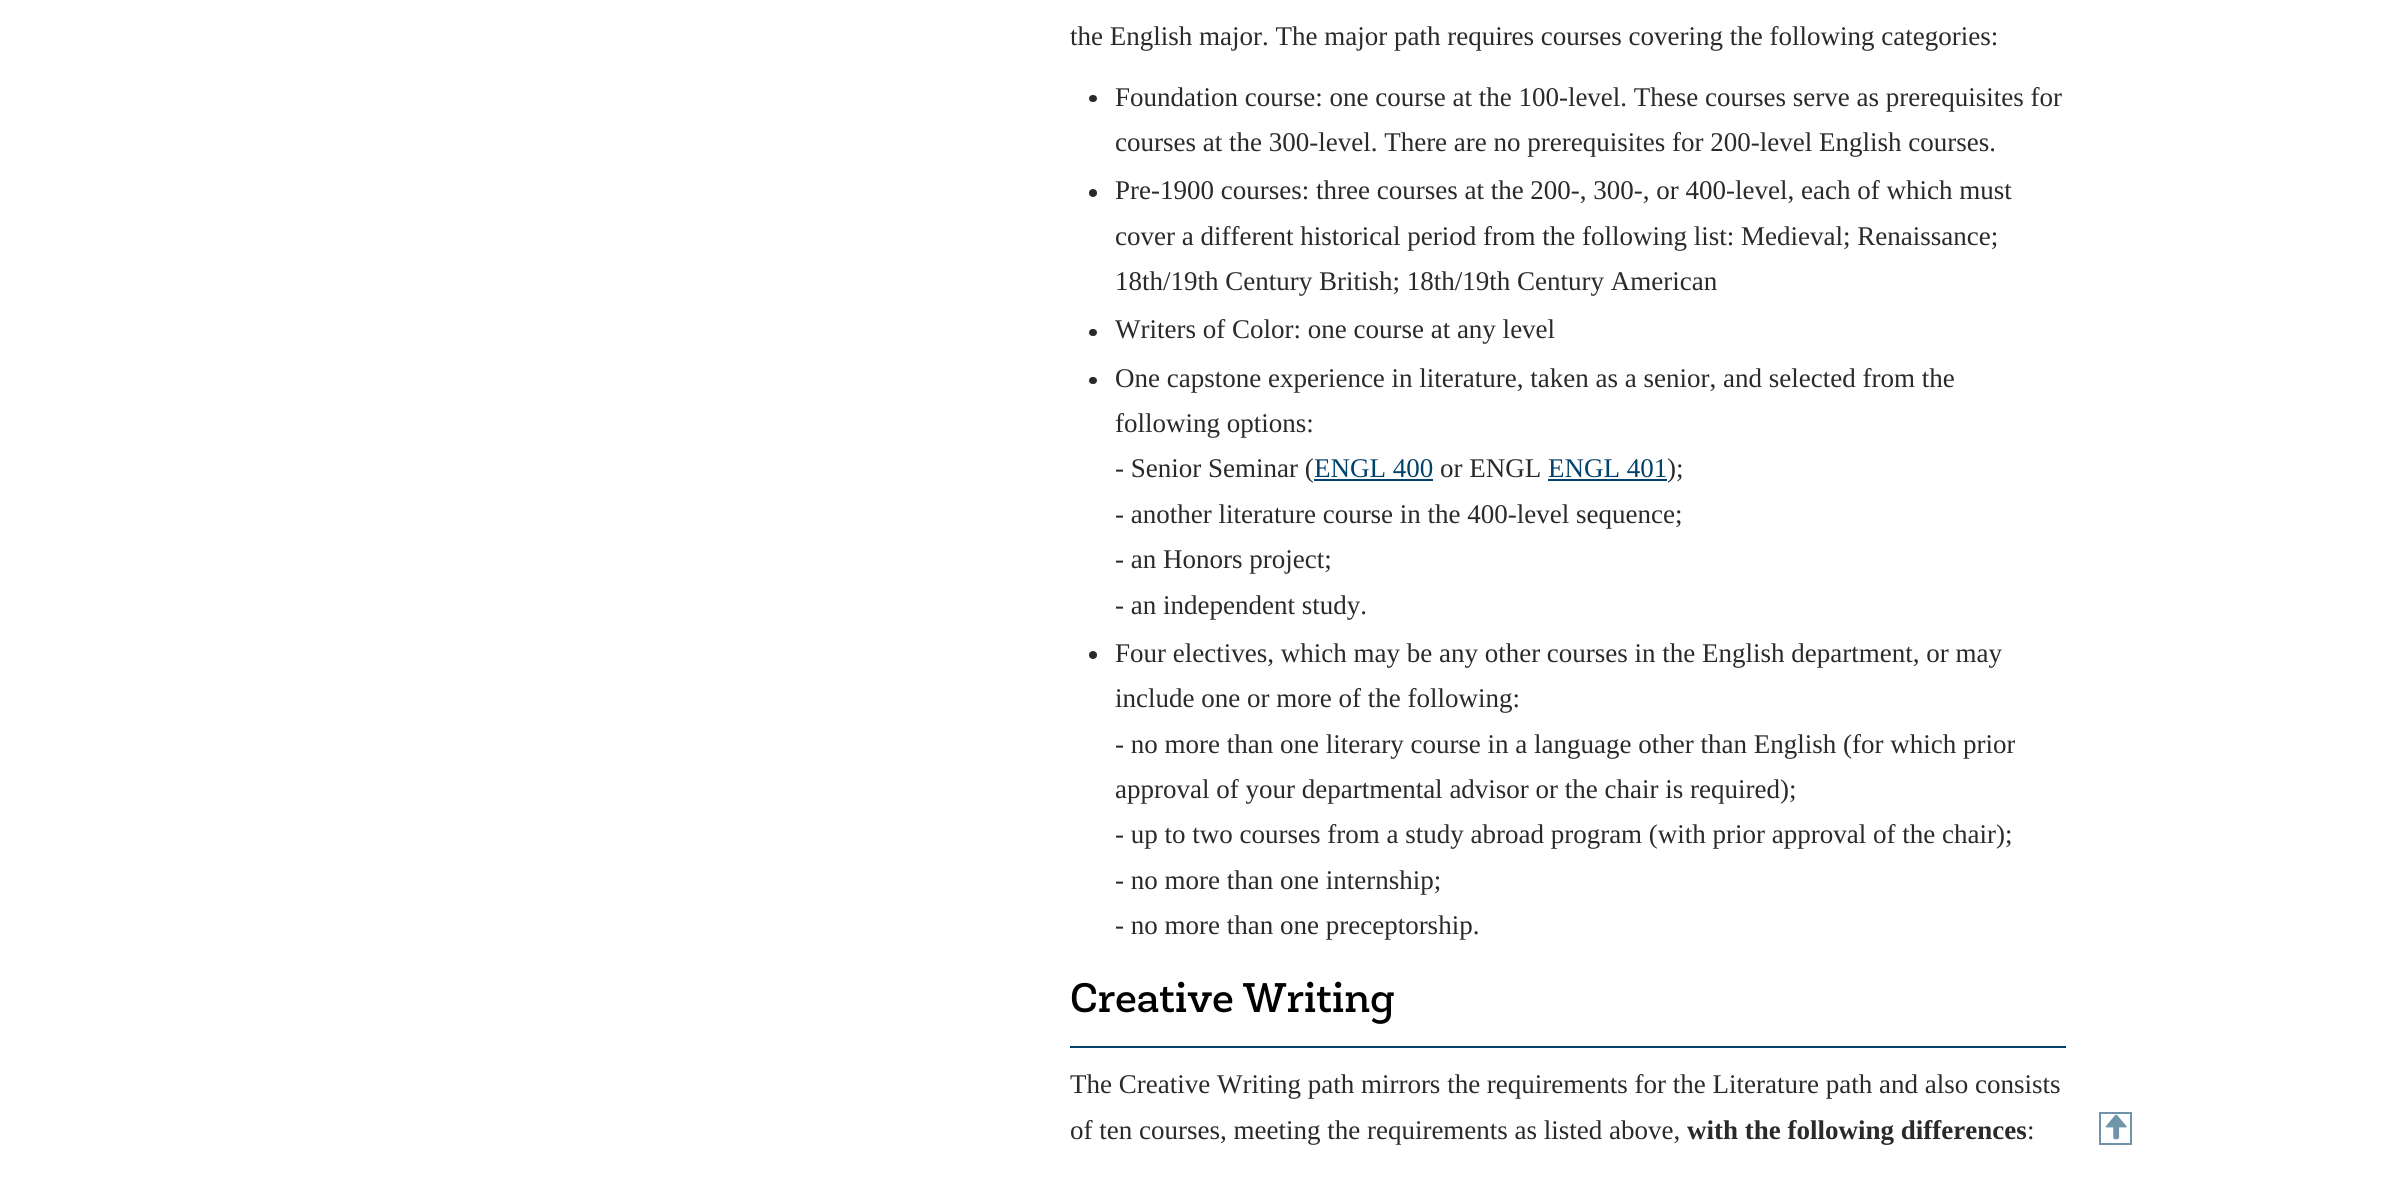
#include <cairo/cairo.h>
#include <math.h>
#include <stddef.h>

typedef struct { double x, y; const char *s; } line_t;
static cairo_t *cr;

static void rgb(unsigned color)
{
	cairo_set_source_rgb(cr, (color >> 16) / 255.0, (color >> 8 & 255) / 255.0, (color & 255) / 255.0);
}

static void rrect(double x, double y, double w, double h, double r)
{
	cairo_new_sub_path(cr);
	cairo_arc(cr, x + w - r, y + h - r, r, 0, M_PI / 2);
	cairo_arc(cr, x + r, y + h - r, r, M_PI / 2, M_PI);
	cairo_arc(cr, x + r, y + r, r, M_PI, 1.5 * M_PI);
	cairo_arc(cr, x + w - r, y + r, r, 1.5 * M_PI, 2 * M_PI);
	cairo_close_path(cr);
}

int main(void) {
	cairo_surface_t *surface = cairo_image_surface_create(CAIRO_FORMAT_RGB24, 2392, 1179);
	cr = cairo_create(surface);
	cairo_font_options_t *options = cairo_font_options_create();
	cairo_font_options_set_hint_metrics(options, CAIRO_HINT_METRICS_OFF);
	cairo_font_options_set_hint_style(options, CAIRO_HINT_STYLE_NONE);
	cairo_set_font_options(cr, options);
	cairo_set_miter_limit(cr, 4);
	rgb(0xffffff);
	cairo_paint(cr);
	rgb(0x2a2a2a);
	rrect(1089, 95, 8, 7, 3.5);
	cairo_fill(cr);
	cairo_arc(cr, 1093, 193, 4, 0, 2 * M_PI);
	cairo_fill(cr);
	rrect(1089, 329, 8, 7, 3.5);
	cairo_fill(cr);
	rrect(1089, 377, 8, 7, 3.5);
	cairo_fill(cr);
	rgb(0x01426a);
	cairo_rectangle(cr, 1314, 479, 119, 2);
	cairo_fill(cr);
	cairo_rectangle(cr, 1548, 479, 119, 2);
	cairo_fill(cr);
	rgb(0x2a2a2a);
	cairo_arc(cr, 1093, 655, 4, 0, 2 * M_PI);
	cairo_fill(cr);
	rgb(0x01426a);
	cairo_rectangle(cr, 1070, 1046, 996, 2);
	cairo_fill(cr);
	cairo_rectangle(cr, 2100, 1113, 31, 31);
	rgb(0x7095ab);
	cairo_stroke(cr);
	cairo_select_font_face(cr, "Liberation Serif", CAIRO_FONT_SLANT_NORMAL, CAIRO_FONT_WEIGHT_NORMAL);
	cairo_set_font_size(cr, 27);
	rgb(0x2a2a2a);
	{
		static const line_t items[] = {
			{1070, 45, "the English major. The major path requires courses covering the following categories:"},
			{1115, 106, "Foundation course: one course at the 100-level. These courses serve as prerequisites for"},
			{1115, 151, "courses at the 300-level. There are no prerequisites for 200-level English courses."},
			{1115, 199, "Pre-1900 courses: three courses at the 200-, 300-, or 400-level, each of which must"},
			{1115, 245, "cover a different historical period from the following list: Medieval; Renaissance;"},
			{1115, 290, "18th/19th Century British; 18th/19th Century American"},
			{1115, 338, "Writers of Color: one course at any level"},
			{1115, 387, "One capstone experience in literature, taken as a senior, and selected from the"},
			{1115, 432, "following options:"},
			{1115, 477, "- Senior Seminar ("},
		};
		for (size_t i = 0; i < sizeof items / sizeof *items; i++) {
			cairo_move_to(cr, items[i].x, items[i].y);
			cairo_show_text(cr, items[i].s);
		}
	}
	rgb(0x01426a);
	cairo_move_to(cr, 1314, 477);
	cairo_show_text(cr, "ENGL 400");
	rgb(0x2a2a2a);
	cairo_move_to(cr, 1440, 477);
	cairo_show_text(cr, "or ENGL");
	rgb(0x01426a);
	cairo_move_to(cr, 1548, 477);
	cairo_show_text(cr, "ENGL 401");
	rgb(0x2a2a2a);
	{
		static const line_t items[] = {
			{1667, 477, ");"},
			{1115, 523, "- another literature course in the 400-level sequence;"},
			{1115, 568, "- an Honors project;"},
			{1115, 614, "- an independent study."},
			{1115, 662, "Four electives, which may be any other courses in the English department, or may"},
			{1115, 707, "include one or more of the following:"},
			{1115, 753, "- no more than one literary course in a language other than English (for which prior"},
			{1115, 798, "approval of your departmental advisor or the chair is required);"},
			{1115, 843, "- up to two courses from a study abroad program (with prior approval of the chair);"},
			{1115, 889, "- no more than one internship;"},
			{1115, 934, "- no more than one preceptorship."},
		};
		for (size_t i = 0; i < sizeof items / sizeof *items; i++) {
			cairo_move_to(cr, items[i].x, items[i].y);
			cairo_show_text(cr, items[i].s);
		}
	}
	cairo_select_font_face(cr, "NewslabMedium", CAIRO_FONT_SLANT_NORMAL, CAIRO_FONT_WEIGHT_NORMAL);
	cairo_set_font_size(cr, 42);
	rgb(0x000000);
	cairo_move_to(cr, 1070, 1012);
	cairo_show_text(cr, "Creative Writing");
	cairo_select_font_face(cr, "Liberation Serif", CAIRO_FONT_SLANT_NORMAL, CAIRO_FONT_WEIGHT_NORMAL);
	cairo_set_font_size(cr, 27);
	rgb(0x2a2a2a);
	cairo_move_to(cr, 1070, 1093);
	cairo_show_text(cr, "The Creative Writing path mirrors the requirements for the Literature path and also consists");
	cairo_move_to(cr, 1070, 1139);
	cairo_show_text(cr, "of ten courses, meeting the requirements as listed above,");
	cairo_select_font_face(cr, "Liberation Serif", CAIRO_FONT_SLANT_NORMAL, CAIRO_FONT_WEIGHT_BOLD);
	cairo_move_to(cr, 1687, 1139);
	cairo_show_text(cr, "with the following differences");
	cairo_select_font_face(cr, "Liberation Serif", CAIRO_FONT_SLANT_NORMAL, CAIRO_FONT_WEIGHT_NORMAL);
	cairo_move_to(cr, 2027, 1139);
	cairo_show_text(cr, ":");
	cairo_select_font_face(cr, "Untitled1 Medium", CAIRO_FONT_SLANT_NORMAL, CAIRO_FONT_WEIGHT_NORMAL);
	rgb(0x7095ab);
	cairo_move_to(cr, 2102, 1135);
	cairo_show_text(cr, "T");
	cairo_surface_write_to_png(surface, "page.png");
	cairo_font_options_destroy(options);
	cairo_destroy(cr);
	cairo_surface_destroy(surface);
	return 0;
}
